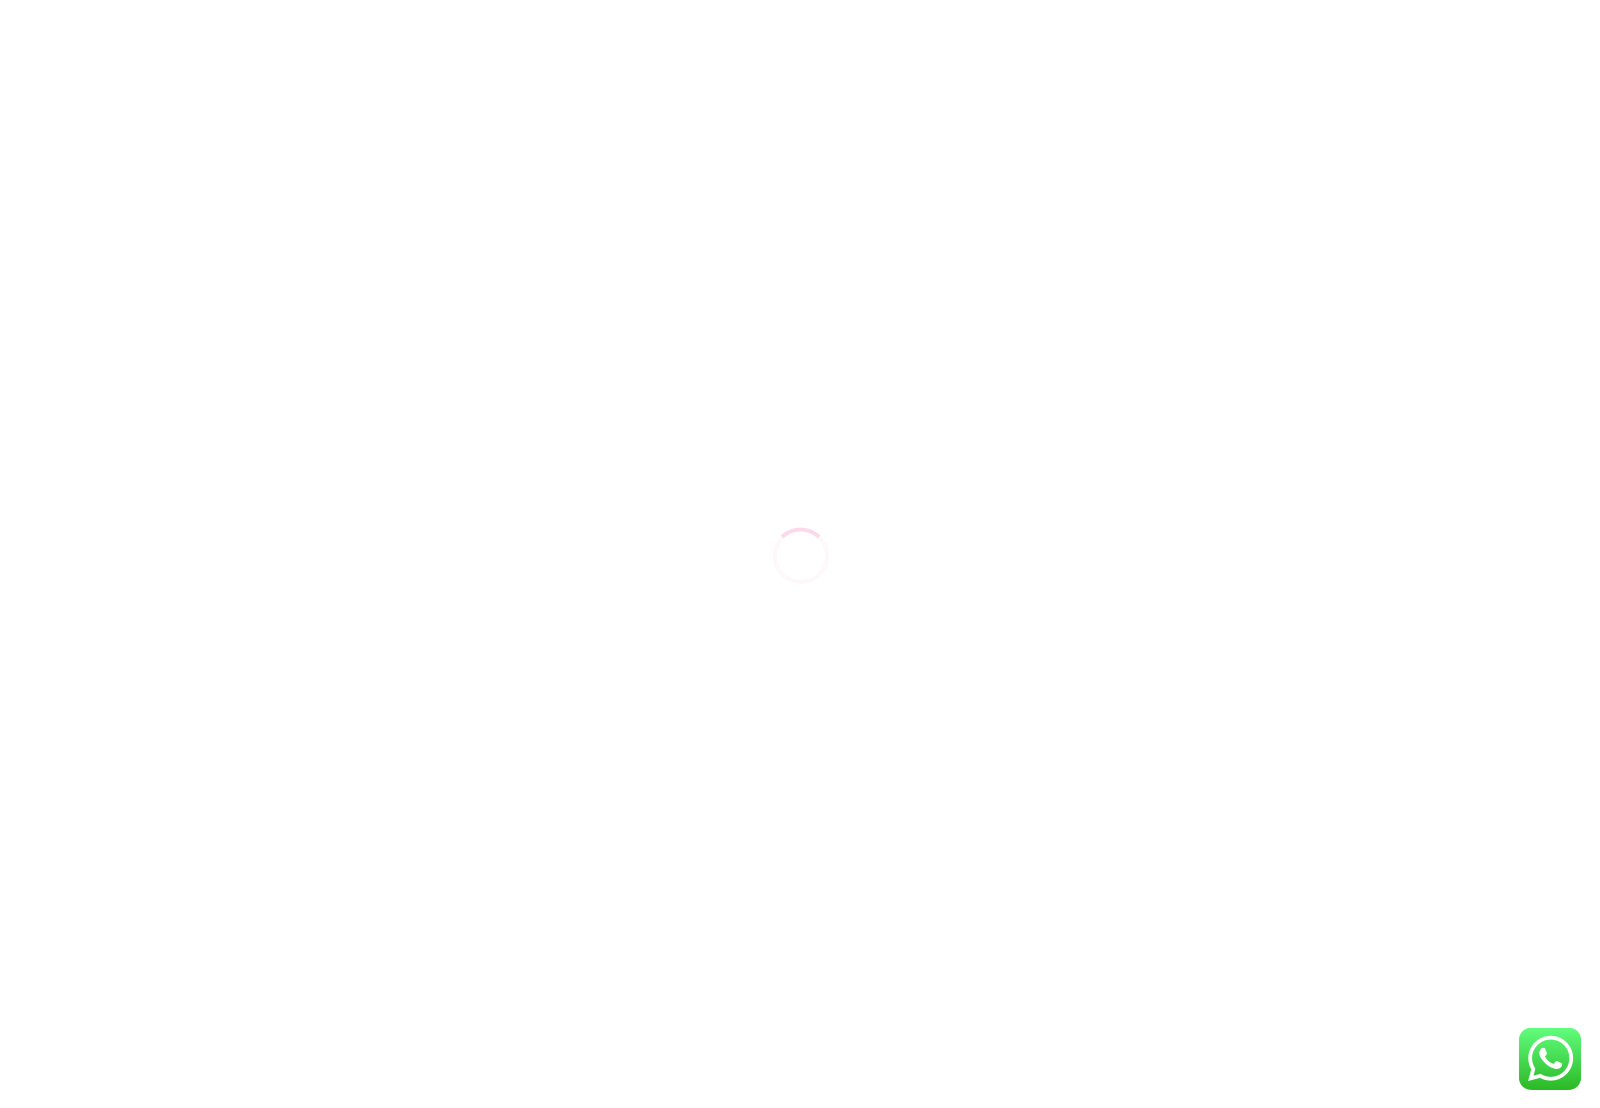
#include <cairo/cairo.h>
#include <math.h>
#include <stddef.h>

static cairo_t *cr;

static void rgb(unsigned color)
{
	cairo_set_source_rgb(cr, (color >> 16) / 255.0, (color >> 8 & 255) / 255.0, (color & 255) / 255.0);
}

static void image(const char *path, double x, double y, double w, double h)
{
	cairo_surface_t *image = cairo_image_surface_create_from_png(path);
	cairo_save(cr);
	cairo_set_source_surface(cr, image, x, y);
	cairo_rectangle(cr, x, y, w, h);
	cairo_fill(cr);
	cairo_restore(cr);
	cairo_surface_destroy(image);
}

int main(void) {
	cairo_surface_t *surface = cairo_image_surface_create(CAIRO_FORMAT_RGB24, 1600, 1108);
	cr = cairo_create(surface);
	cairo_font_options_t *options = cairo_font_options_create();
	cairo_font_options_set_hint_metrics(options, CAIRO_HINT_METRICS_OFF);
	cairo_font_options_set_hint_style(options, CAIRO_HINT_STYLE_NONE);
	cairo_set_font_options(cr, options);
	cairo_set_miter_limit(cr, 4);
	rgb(0xffffff);
	cairo_paint(cr);
	cairo_arc(cr, 801, 556, 26, 0, 2 * M_PI);
	rgb(0xfef8fb);
	cairo_set_line_width(cr, 4);
	cairo_stroke(cr);
	cairo_new_path(cr);
	cairo_move_to(cr, 782, 537);
	cairo_curve_to(cr, 792, 527, 809, 527, 819, 537);
	cairo_set_source_rgba(cr, 0.984, 0.812, 0.882, 0.75);
	cairo_set_line_width(cr, 3.8);
	cairo_stroke(cr);
	image("img/1.png", 1519, 1028, 62, 62);
	cairo_surface_write_to_png(surface, "page.png");
	cairo_font_options_destroy(options);
	cairo_destroy(cr);
	cairo_surface_destroy(surface);
	return 0;
}
